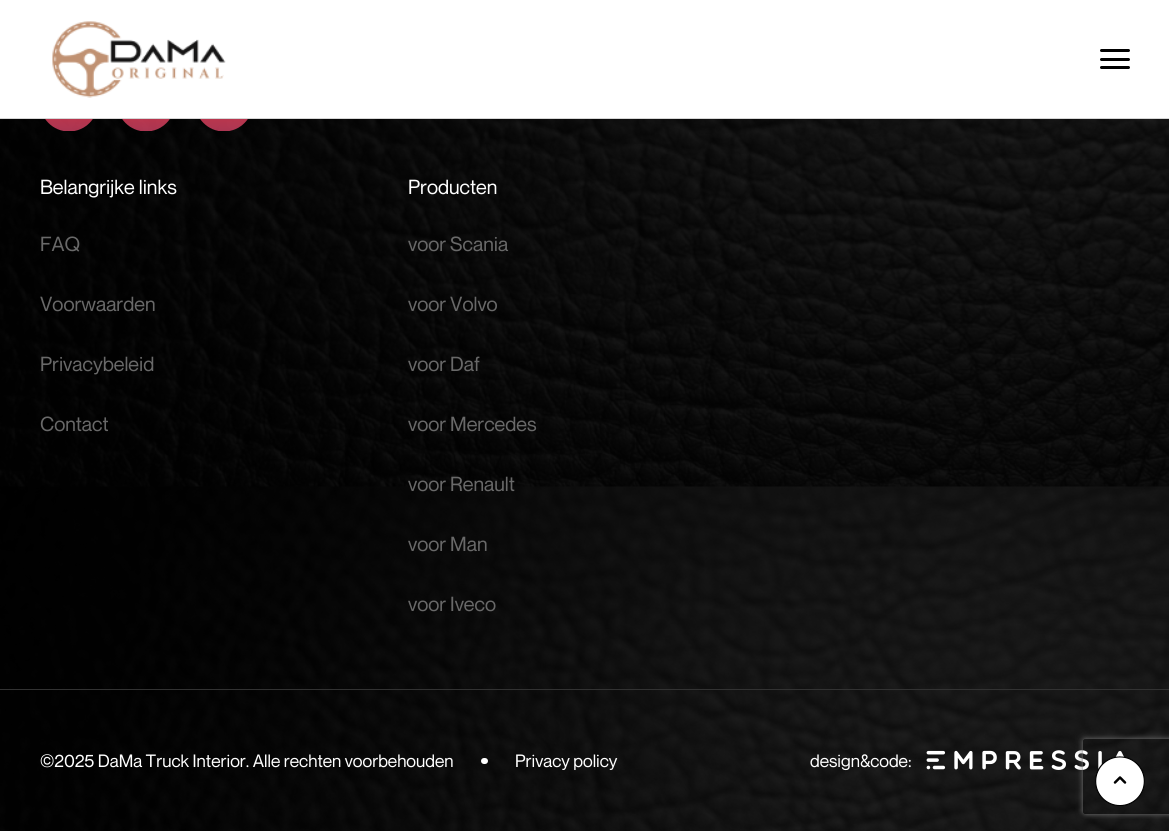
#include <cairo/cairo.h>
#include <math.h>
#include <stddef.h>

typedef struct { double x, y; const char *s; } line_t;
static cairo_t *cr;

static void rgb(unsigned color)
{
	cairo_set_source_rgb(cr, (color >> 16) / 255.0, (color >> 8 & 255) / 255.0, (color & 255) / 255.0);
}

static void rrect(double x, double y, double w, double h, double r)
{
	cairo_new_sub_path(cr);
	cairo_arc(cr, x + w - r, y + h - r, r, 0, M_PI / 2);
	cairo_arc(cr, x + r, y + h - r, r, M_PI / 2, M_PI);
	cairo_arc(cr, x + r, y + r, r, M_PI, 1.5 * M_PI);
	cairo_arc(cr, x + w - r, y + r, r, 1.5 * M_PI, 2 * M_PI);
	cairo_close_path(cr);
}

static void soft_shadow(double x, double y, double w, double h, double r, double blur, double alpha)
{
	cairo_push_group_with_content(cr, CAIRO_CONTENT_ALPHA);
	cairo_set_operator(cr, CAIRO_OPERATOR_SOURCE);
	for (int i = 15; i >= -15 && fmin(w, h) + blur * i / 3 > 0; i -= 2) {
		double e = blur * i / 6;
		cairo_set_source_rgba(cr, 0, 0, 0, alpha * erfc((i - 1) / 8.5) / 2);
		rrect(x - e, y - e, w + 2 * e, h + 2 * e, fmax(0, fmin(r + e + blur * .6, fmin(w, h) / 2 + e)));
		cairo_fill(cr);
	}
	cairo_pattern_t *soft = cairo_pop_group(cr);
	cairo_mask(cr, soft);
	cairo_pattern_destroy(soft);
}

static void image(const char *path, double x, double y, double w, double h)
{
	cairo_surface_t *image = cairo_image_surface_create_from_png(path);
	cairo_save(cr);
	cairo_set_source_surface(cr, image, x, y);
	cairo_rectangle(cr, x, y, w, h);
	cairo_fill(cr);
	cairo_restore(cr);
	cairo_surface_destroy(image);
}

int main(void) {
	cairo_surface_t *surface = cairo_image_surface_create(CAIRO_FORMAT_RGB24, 1169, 831);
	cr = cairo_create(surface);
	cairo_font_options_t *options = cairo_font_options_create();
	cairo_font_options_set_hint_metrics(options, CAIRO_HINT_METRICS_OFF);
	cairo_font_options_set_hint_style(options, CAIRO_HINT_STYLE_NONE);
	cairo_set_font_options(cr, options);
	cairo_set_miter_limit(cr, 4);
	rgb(0xffffff);
	cairo_paint(cr);
	rgb(0xd6d6d6);
	cairo_rectangle(cr, 0, 118, 1169, 1);
	cairo_fill(cr);
	image("img/1.png", 52, 21, 174, 77);
	rgb(0x000000);
	rrect(1100, 58, 30, 3, 1.5);
	cairo_fill(cr);
	rrect(1100, 49, 30, 3, 1.5);
	cairo_fill(cr);
	rrect(1100, 66, 30, 3, 1.5);
	cairo_fill(cr);
	image("img/2.png", 0, 119, 1169, 712);
	image("img/3.png", 45, 119, 48, 12);
	image("img/4.png", 122, 119, 48, 12);
	image("img/5.png", 200, 119, 48, 12);
	rgb(0x323232);
	cairo_rectangle(cr, 0, 689, 1169, 1);
	cairo_fill(cr);
	rgb(0xffffff);
	rrect(481, 758, 7, 6, 3);
	cairo_fill(cr);
	image("img/6.png", 926, 750, 199, 20);
	cairo_save(cr);
	cairo_set_fill_rule(cr, CAIRO_FILL_RULE_EVEN_ODD);
	cairo_new_path(cr);
	cairo_move_to(cr, 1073, 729);
	cairo_line_to(cr, 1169, 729);
	cairo_line_to(cr, 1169, 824);
	cairo_line_to(cr, 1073, 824);
	cairo_close_path(cr);
	cairo_move_to(cr, 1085.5, 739);
	cairo_line_to(cr, 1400.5, 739);
	cairo_curve_to(cr, 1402, 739, 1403, 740, 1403, 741.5);
	cairo_line_to(cr, 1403, 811.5);
	cairo_curve_to(cr, 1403, 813, 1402, 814, 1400.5, 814);
	cairo_line_to(cr, 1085.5, 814);
	cairo_curve_to(cr, 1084, 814, 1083, 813, 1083, 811.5);
	cairo_line_to(cr, 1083, 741.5);
	cairo_curve_to(cr, 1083, 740, 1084, 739, 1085.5, 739);
	cairo_close_path(cr);
	cairo_clip(cr);
	rgb(0x808080);
	soft_shadow(1083, 739, 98, 75, 2.5, 3, 1);
	cairo_restore(cr);
	image("img/7.png", 1095, 756, 50, 50);
	cairo_select_font_face(cr, "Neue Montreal", CAIRO_FONT_SLANT_NORMAL, CAIRO_FONT_WEIGHT_NORMAL);
	cairo_set_font_size(cr, 20);
	cairo_move_to(cr, 40, 194);
	cairo_show_text(cr, "Belangrijke links");
	rgb(0x696969);
	{
		static const line_t items[] = {
			{40, 251, "FAQ"},
			{40, 311, "Voorwaarden"},
			{40, 371, "Privacybeleid"},
			{40, 431, "Contact"},
		};
		for (size_t i = 0; i < sizeof items / sizeof *items; i++) {
			cairo_move_to(cr, items[i].x, items[i].y);
			cairo_show_text(cr, items[i].s);
		}
	}
	rgb(0xffffff);
	cairo_move_to(cr, 408, 194);
	cairo_show_text(cr, "Producten");
	rgb(0x696969);
	{
		static const line_t items[] = {
			{408, 251, "voor Scania"},
			{408, 311, "voor Volvo"},
			{408, 371, "voor Daf"},
			{408, 431, "voor Mercedes"},
			{408, 491, "voor Renault"},
			{408, 551, "voor Man"},
			{408, 611, "voor Iveco"},
		};
		for (size_t i = 0; i < sizeof items / sizeof *items; i++) {
			cairo_move_to(cr, items[i].x, items[i].y);
			cairo_show_text(cr, items[i].s);
		}
	}
	cairo_set_font_size(cr, 17.5);
	rgb(0xffffff);
	{
		static const line_t items[] = {
			{40, 767, "©2025 DaMa Truck Interior. Alle rechten voorbehouden"},
			{515, 767, "Privacy policy"},
			{810, 767, "design&code:"},
		};
		for (size_t i = 0; i < sizeof items / sizeof *items; i++) {
			cairo_move_to(cr, items[i].x, items[i].y);
			cairo_show_text(cr, items[i].s);
		}
	}
	cairo_surface_write_to_png(surface, "page.png");
	cairo_font_options_destroy(options);
	cairo_destroy(cr);
	cairo_surface_destroy(surface);
	return 0;
}
